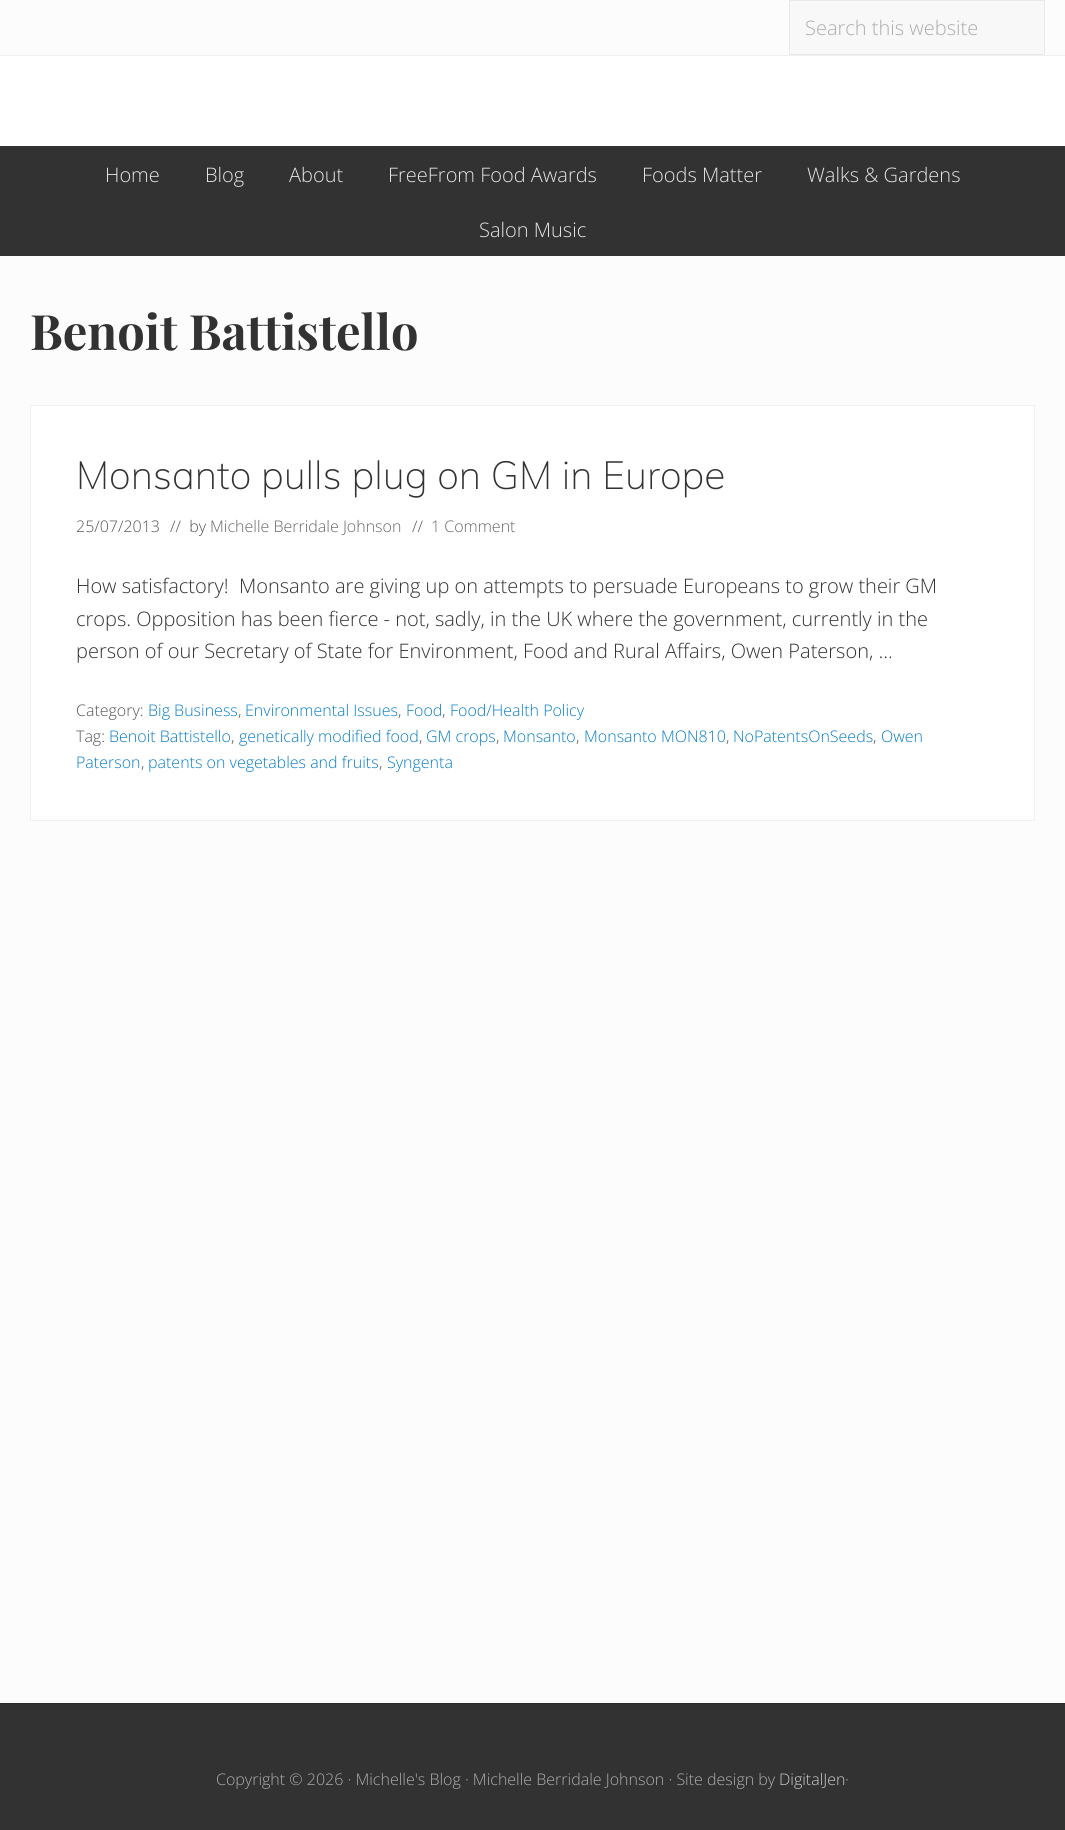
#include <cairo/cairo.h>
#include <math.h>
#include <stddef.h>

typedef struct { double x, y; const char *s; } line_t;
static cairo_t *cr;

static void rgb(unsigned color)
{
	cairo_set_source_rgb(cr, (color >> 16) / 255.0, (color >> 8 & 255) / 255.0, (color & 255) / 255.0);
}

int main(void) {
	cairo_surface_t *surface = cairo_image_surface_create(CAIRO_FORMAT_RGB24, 1065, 1830);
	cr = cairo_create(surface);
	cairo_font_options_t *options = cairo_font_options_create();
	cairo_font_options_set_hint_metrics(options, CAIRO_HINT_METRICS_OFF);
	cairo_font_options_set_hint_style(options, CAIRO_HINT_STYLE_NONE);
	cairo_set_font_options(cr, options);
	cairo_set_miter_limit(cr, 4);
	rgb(0xfcfcfc);
	cairo_paint(cr);
	rgb(0xefefef);
	cairo_rectangle(cr, 0, 55, 1065, 1);
	cairo_fill(cr);
	rgb(0xf8f8f8);
	cairo_rectangle(cr, 789.5, 0.5, 255, 54);
	cairo_fill_preserve(cr);
	rgb(0xe9e9e9);
	cairo_set_line_width(cr, 1);
	cairo_stroke(cr);
	rgb(0xffffff);
	cairo_rectangle(cr, 0, 56, 1065, 90);
	cairo_fill(cr);
	rgb(0x323232);
	cairo_rectangle(cr, 0, 146, 1065, 110);
	cairo_fill(cr);
	rgb(0xffffff);
	cairo_rectangle(cr, 30.5, 405.5, 1004, 415);
	cairo_fill_preserve(cr);
	rgb(0xf0f0f0);
	cairo_stroke(cr);
	rgb(0x323232);
	cairo_rectangle(cr, 0, 1704, 1065, 126);
	cairo_fill(cr);
	rgb(0x2d2d2d);
	cairo_rectangle(cr, 0, 1703, 1065, 1);
	cairo_fill(cr);
	cairo_select_font_face(cr, "Open Sans Light", CAIRO_FONT_SLANT_NORMAL, CAIRO_FONT_WEIGHT_NORMAL);
	cairo_set_font_size(cr, 20);
	rgb(0xadadad);
	cairo_move_to(cr, 805, 35);
	cairo_show_text(cr, "Search this website");
	rgb(0xe4e4e4);
	{
		static const line_t items[] = {
			{105, 182, "Home"},
			{205, 182, "Blog"},
			{289, 182, "About"},
			{388, 182, "FreeFrom Food Awards"},
			{642, 182, "Foods Matter"},
			{807, 182, "Walks & Gardens"},
			{479, 237, "Salon Music"},
		};
		for (size_t i = 0; i < sizeof items / sizeof *items; i++) {
			cairo_move_to(cr, items[i].x, items[i].y);
			cairo_show_text(cr, items[i].s);
		}
	}
	cairo_select_font_face(cr, "Playfair Display", CAIRO_FONT_SLANT_NORMAL, CAIRO_FONT_WEIGHT_BOLD);
	cairo_set_font_size(cr, 48.75);
	rgb(0x323232);
	cairo_move_to(cr, 30, 350);
	cairo_show_text(cr, "Benoit Battistello");
	cairo_select_font_face(cr, "Muli ExtraLight", CAIRO_FONT_SLANT_NORMAL, CAIRO_FONT_WEIGHT_NORMAL);
	cairo_set_font_size(cr, 39);
	cairo_move_to(cr, 76, 489);
	cairo_show_text(cr, "Monsanto pulls plug on GM in Europe");
	cairo_select_font_face(cr, "Open Sans Light", CAIRO_FONT_SLANT_NORMAL, CAIRO_FONT_WEIGHT_NORMAL);
	cairo_set_font_size(cr, 16);
	rgb(0x555555);
	cairo_move_to(cr, 76, 532);
	cairo_show_text(cr, "25/07/2013");
	cairo_move_to(cr, 170, 532);
	cairo_show_text(cr, "//  by");
	rgb(0x666666);
	cairo_move_to(cr, 210, 532);
	cairo_show_text(cr, "Michelle Berridale Johnson");
	rgb(0x555555);
	cairo_move_to(cr, 412, 532);
	cairo_show_text(cr, "//");
	rgb(0x666666);
	cairo_move_to(cr, 431, 532);
	cairo_show_text(cr, "1 Comment");
	cairo_set_font_size(cr, 20);
	rgb(0x323232);
	{
		static const line_t items[] = {
			{76, 593, "How satisfactory!  Monsanto are giving up on attempts to persuade Europeans to grow their GM"},
			{76, 626, "crops. Opposition has been fierce - not, sadly, in the UK where the government, currently in the"},
			{76, 658, "person of our Secretary of State for Environment, Food and Rural Affairs, Owen Paterson, …"},
		};
		for (size_t i = 0; i < sizeof items / sizeof *items; i++) {
			cairo_move_to(cr, items[i].x, items[i].y);
			cairo_show_text(cr, items[i].s);
		}
	}
	cairo_set_font_size(cr, 16);
	rgb(0x555555);
	cairo_move_to(cr, 76, 716);
	cairo_show_text(cr, "Category:");
	rgb(0x067ccc);
	cairo_move_to(cr, 148, 716);
	cairo_show_text(cr, "Big Business");
	rgb(0x555555);
	cairo_move_to(cr, 238, 716);
	cairo_show_text(cr, ",");
	rgb(0x067ccc);
	cairo_move_to(cr, 245, 716);
	cairo_show_text(cr, "Environmental Issues");
	rgb(0x555555);
	cairo_move_to(cr, 398, 716);
	cairo_show_text(cr, ",");
	rgb(0x067ccc);
	cairo_move_to(cr, 406, 716);
	cairo_show_text(cr, "Food");
	rgb(0x555555);
	cairo_move_to(cr, 442, 716);
	cairo_show_text(cr, ",");
	rgb(0x067ccc);
	cairo_move_to(cr, 450, 716);
	cairo_show_text(cr, "Food/Health Policy");
	rgb(0x555555);
	cairo_move_to(cr, 76, 742);
	cairo_show_text(cr, "Tag:");
	rgb(0x067ccc);
	cairo_move_to(cr, 109, 742);
	cairo_show_text(cr, "Benoit Battistello");
	rgb(0x555555);
	cairo_move_to(cr, 231, 742);
	cairo_show_text(cr, ",");
	rgb(0x067ccc);
	cairo_move_to(cr, 239, 742);
	cairo_show_text(cr, "genetically modified food");
	rgb(0x555555);
	cairo_move_to(cr, 419, 742);
	cairo_show_text(cr, ",");
	rgb(0x067ccc);
	cairo_move_to(cr, 426, 742);
	cairo_show_text(cr, "GM crops");
	rgb(0x555555);
	cairo_move_to(cr, 496, 742);
	cairo_show_text(cr, ",");
	rgb(0x067ccc);
	cairo_move_to(cr, 503, 742);
	cairo_show_text(cr, "Monsanto");
	rgb(0x555555);
	cairo_move_to(cr, 576, 742);
	cairo_show_text(cr, ",");
	rgb(0x067ccc);
	cairo_move_to(cr, 584, 742);
	cairo_show_text(cr, "Monsanto MON810");
	rgb(0x555555);
	cairo_move_to(cr, 726, 742);
	cairo_show_text(cr, ",");
	rgb(0x067ccc);
	cairo_move_to(cr, 733, 742);
	cairo_show_text(cr, "NoPatentsOnSeeds");
	rgb(0x555555);
	cairo_move_to(cr, 873, 742);
	cairo_show_text(cr, ",");
	rgb(0x067ccc);
	cairo_move_to(cr, 881, 742);
	cairo_show_text(cr, "Owen");
	cairo_move_to(cr, 76, 768);
	cairo_show_text(cr, "Paterson");
	rgb(0x555555);
	cairo_move_to(cr, 141, 768);
	cairo_show_text(cr, ",");
	rgb(0x067ccc);
	cairo_move_to(cr, 148, 768);
	cairo_show_text(cr, "patents on vegetables and fruits");
	rgb(0x555555);
	cairo_move_to(cr, 379, 768);
	cairo_show_text(cr, ",");
	rgb(0x067ccc);
	cairo_move_to(cr, 387, 768);
	cairo_show_text(cr, "Syngenta");
	rgb(0xadadad);
	cairo_move_to(cr, 216, 1785);
	cairo_show_text(cr, "Copyright © 2026 · Michelle's Blog · Michelle Berridale Johnson · Site design by");
	rgb(0xcccccc);
	cairo_move_to(cr, 779, 1785);
	cairo_show_text(cr, "DigitalJen");
	rgb(0xadadad);
	cairo_move_to(cr, 845, 1785);
	cairo_show_text(cr, "·");
	cairo_surface_write_to_png(surface, "page.png");
	cairo_font_options_destroy(options);
	cairo_destroy(cr);
	cairo_surface_destroy(surface);
	return 0;
}
